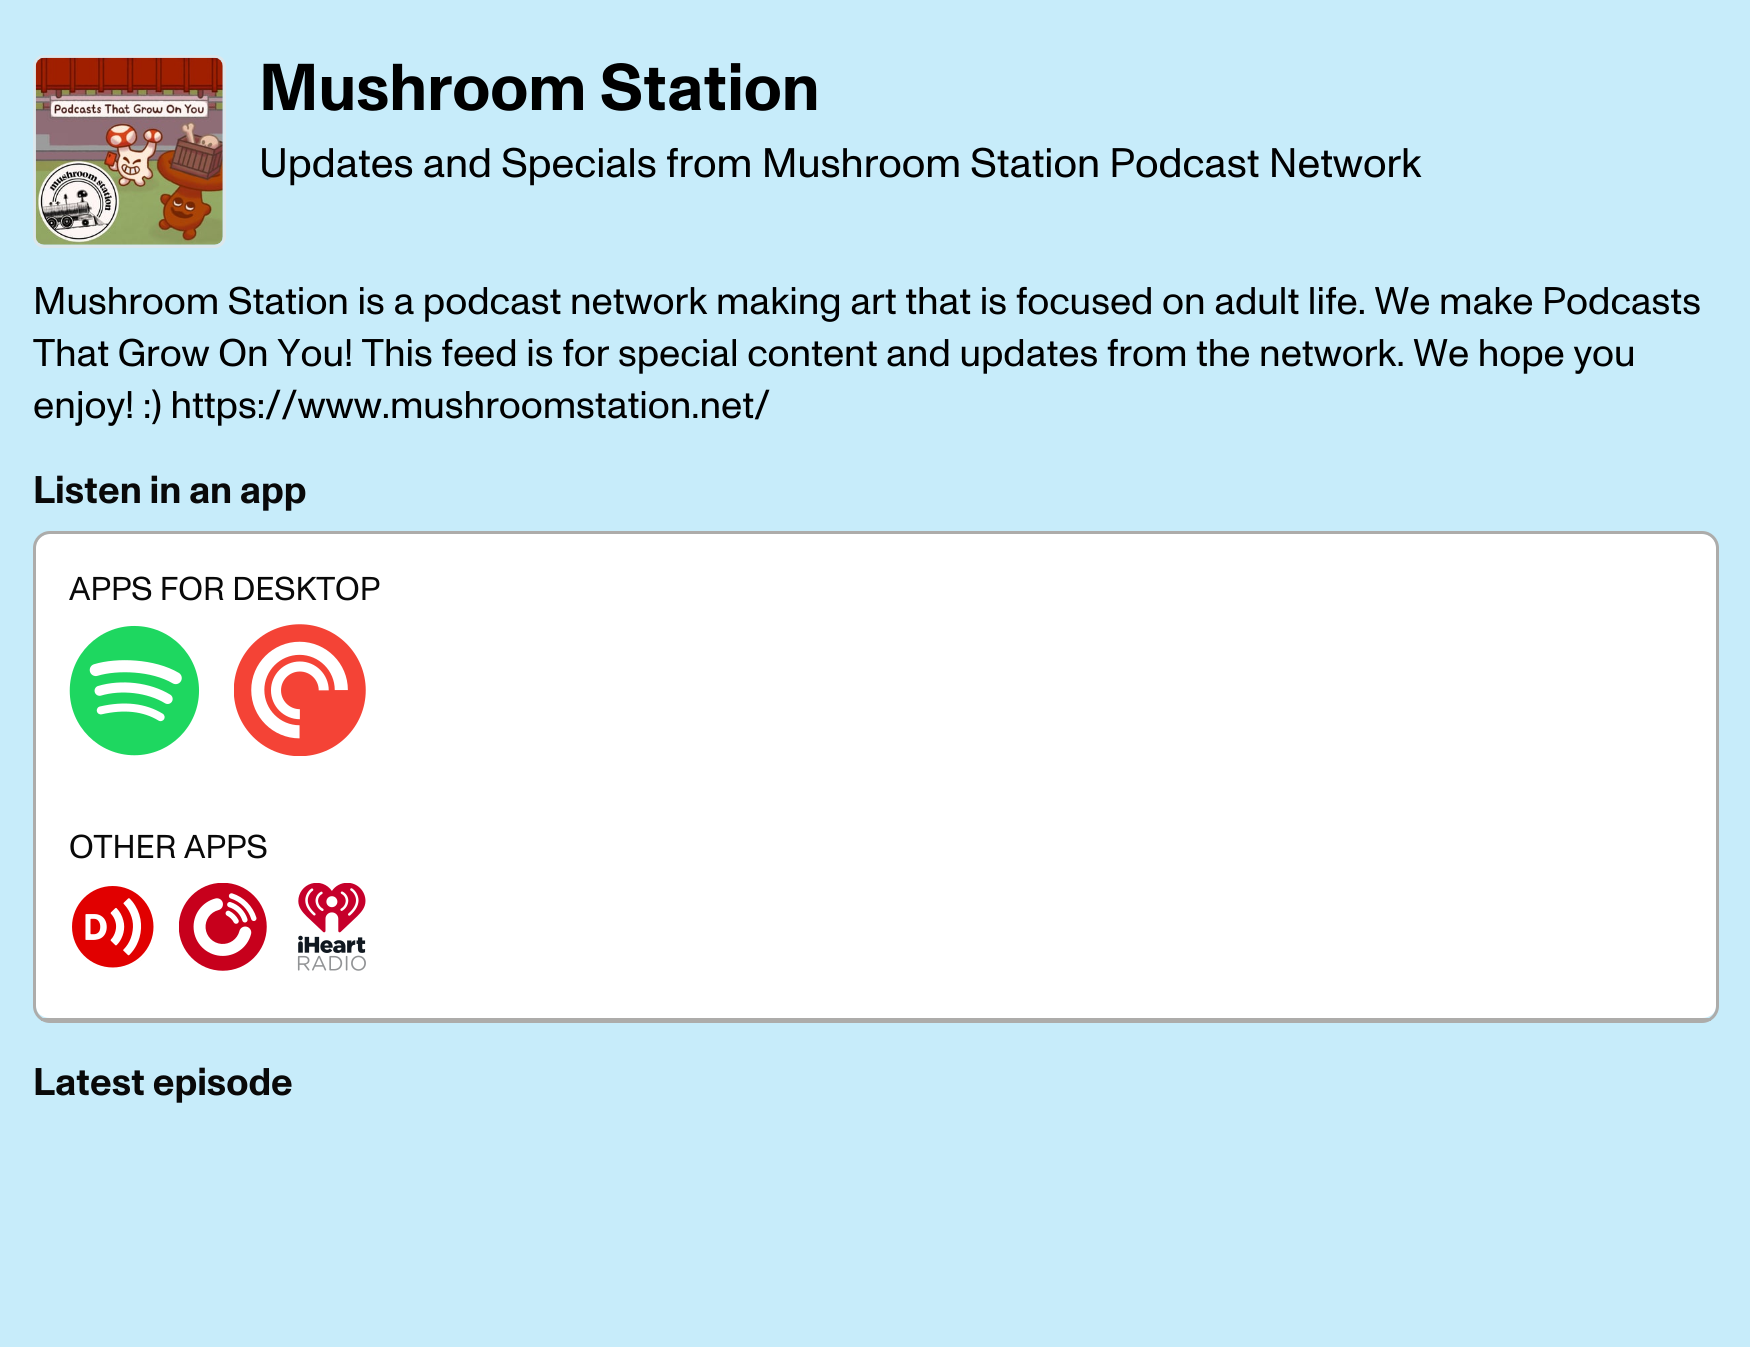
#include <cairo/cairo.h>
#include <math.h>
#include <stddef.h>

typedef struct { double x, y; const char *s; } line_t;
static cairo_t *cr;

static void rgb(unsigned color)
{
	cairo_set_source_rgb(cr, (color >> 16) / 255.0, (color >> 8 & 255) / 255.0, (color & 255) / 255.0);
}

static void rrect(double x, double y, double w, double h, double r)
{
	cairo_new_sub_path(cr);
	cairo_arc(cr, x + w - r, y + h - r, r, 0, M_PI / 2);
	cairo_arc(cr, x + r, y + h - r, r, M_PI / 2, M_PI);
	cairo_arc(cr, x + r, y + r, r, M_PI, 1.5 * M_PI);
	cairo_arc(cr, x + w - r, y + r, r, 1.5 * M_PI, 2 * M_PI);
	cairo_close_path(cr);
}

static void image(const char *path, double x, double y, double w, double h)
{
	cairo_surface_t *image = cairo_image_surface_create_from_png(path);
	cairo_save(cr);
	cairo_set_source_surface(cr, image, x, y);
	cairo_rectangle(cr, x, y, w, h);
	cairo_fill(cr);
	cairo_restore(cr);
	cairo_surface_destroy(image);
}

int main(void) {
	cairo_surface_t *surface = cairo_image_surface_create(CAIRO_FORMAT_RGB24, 1750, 1347);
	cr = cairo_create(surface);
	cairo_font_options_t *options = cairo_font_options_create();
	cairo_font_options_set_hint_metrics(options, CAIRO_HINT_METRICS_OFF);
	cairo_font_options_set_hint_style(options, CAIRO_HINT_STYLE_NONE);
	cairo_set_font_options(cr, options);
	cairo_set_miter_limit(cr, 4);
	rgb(0xc7ecfa);
	cairo_paint(cr);
	rrect(34.5, 56.5, 190, 190, 9.5);
	rgb(0xdce7ec);
	cairo_set_line_width(cr, 3);
	cairo_stroke(cr);
	image("img/1.png", 35, 57, 188, 188);
	rgb(0xffffff);
	cairo_new_path(cr);
	cairo_move_to(cr, 50, 534);
	cairo_line_to(cr, 1702, 534);
	cairo_curve_to(cr, 1710, 534, 1716, 540, 1716, 547);
	cairo_line_to(cr, 1716, 1006);
	cairo_curve_to(cr, 1716, 1013, 1710, 1018, 1702, 1018);
	cairo_line_to(cr, 50, 1018);
	cairo_curve_to(cr, 42, 1018, 36, 1013, 36, 1006);
	cairo_line_to(cr, 36, 547);
	cairo_curve_to(cr, 36, 540, 42, 534, 50, 534);
	cairo_close_path(cr);
	cairo_fill(cr);
	rrect(34.5, 532.5, 1683, 489, 15.5);
	rgb(0xadacaa);
	cairo_stroke(cr);
	cairo_rectangle(cr, 41, 1018, 1670, 3);
	cairo_fill(cr);
	image("img/2.png", 69, 625, 131, 131);
	image("img/3.png", 234, 624, 132, 132);
	image("img/4.png", 72, 886, 82, 82);
	image("img/5.png", 179, 883, 88, 88);
	image("img/6.png", 297, 883, 69, 88);
	cairo_select_font_face(cr, "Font", CAIRO_FONT_SLANT_NORMAL, CAIRO_FONT_WEIGHT_BOLD);
	cairo_set_font_size(cr, 66);
	rgb(0x000000);
	cairo_move_to(cr, 259, 110);
	cairo_show_text(cr, "Mushroom Station");
	cairo_select_font_face(cr, "Font", CAIRO_FONT_SLANT_NORMAL, CAIRO_FONT_WEIGHT_NORMAL);
	cairo_set_font_size(cr, 41.25);
	cairo_move_to(cr, 259, 177);
	cairo_show_text(cr, "Updates and Specials from Mushroom Station Podcast Network");
	cairo_set_font_size(cr, 38.5);
	{
		static const line_t items[] = {
			{33, 314, "Mushroom Station is a podcast network making art that is focused on adult life. We make Podcasts"},
			{33, 366, "That Grow On You! This feed is for special content and updates from the network. We hope you"},
			{33, 418, "enjoy! :) https://www.mushroomstation.net/"},
		};
		for (size_t i = 0; i < sizeof items / sizeof *items; i++) {
			cairo_move_to(cr, items[i].x, items[i].y);
			cairo_show_text(cr, items[i].s);
		}
	}
	cairo_select_font_face(cr, "Font", CAIRO_FONT_SLANT_NORMAL, CAIRO_FONT_WEIGHT_BOLD);
	rgb(0x090909);
	cairo_move_to(cr, 33, 503);
	cairo_show_text(cr, "Listen in an app");
	cairo_select_font_face(cr, "Font", CAIRO_FONT_SLANT_NORMAL, CAIRO_FONT_WEIGHT_NORMAL);
	cairo_set_font_size(cr, 33);
	cairo_move_to(cr, 69, 600);
	cairo_show_text(cr, "APPS FOR DESKTOP");
	cairo_move_to(cr, 69, 858);
	cairo_show_text(cr, "OTHER APPS");
	cairo_select_font_face(cr, "Font", CAIRO_FONT_SLANT_NORMAL, CAIRO_FONT_WEIGHT_BOLD);
	cairo_set_font_size(cr, 38.5);
	cairo_move_to(cr, 33, 1095);
	cairo_show_text(cr, "Latest episode");
	cairo_surface_write_to_png(surface, "page.png");
	cairo_font_options_destroy(options);
	cairo_destroy(cr);
	cairo_surface_destroy(surface);
	return 0;
}
